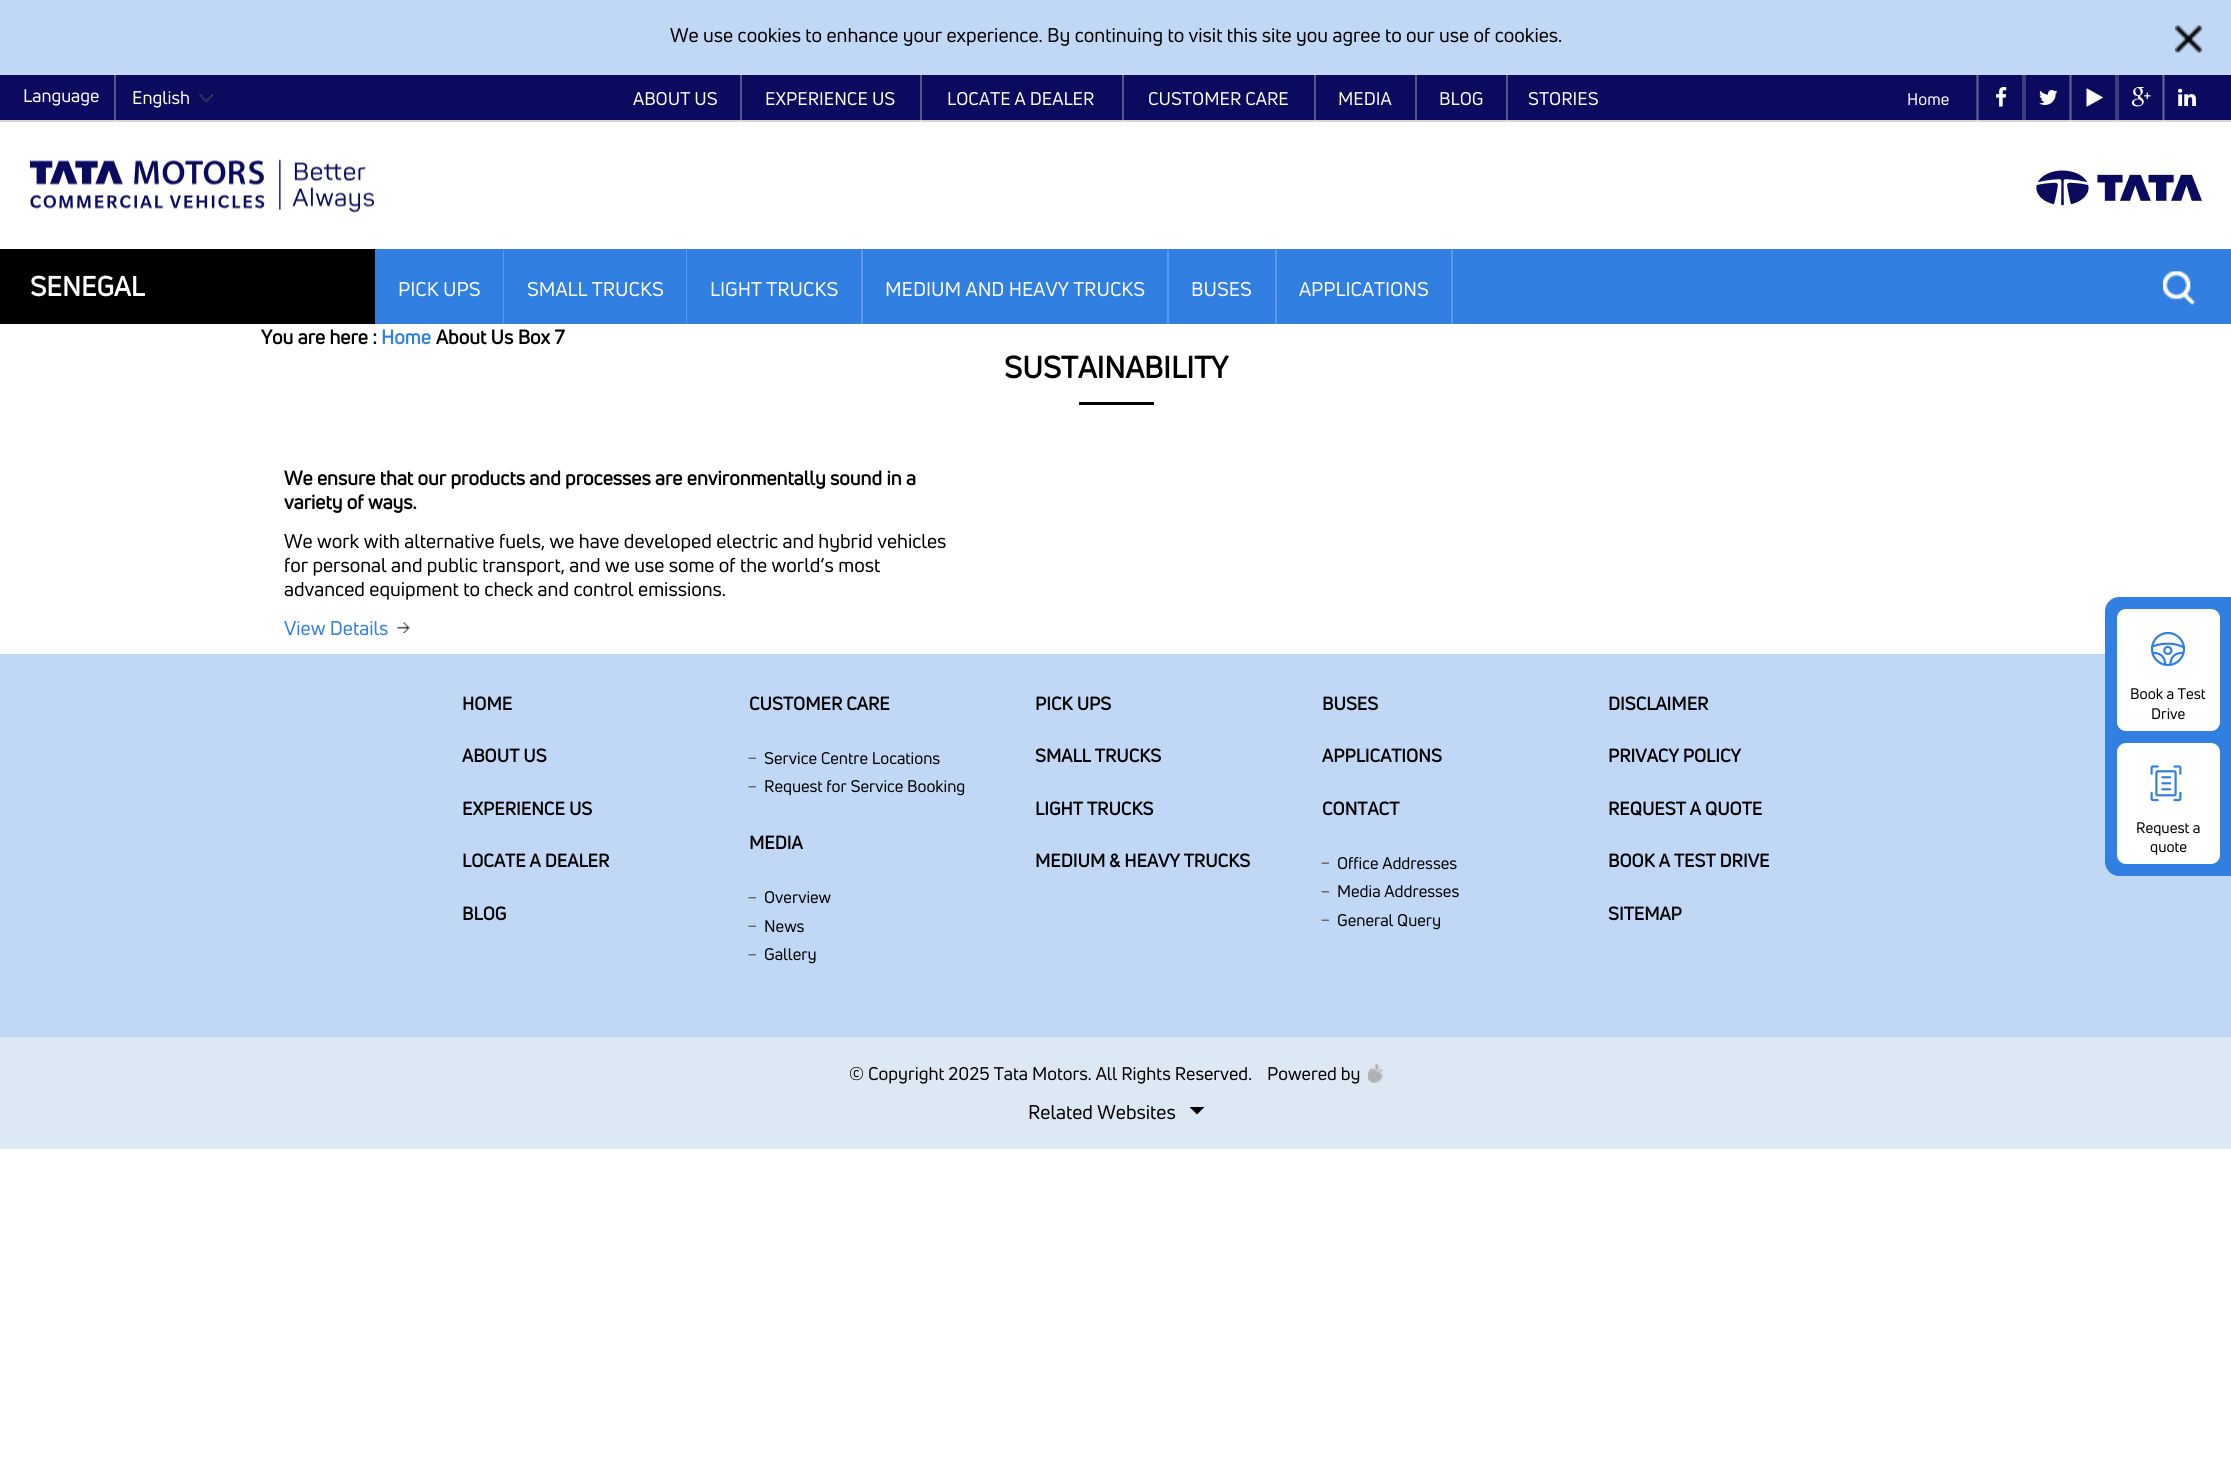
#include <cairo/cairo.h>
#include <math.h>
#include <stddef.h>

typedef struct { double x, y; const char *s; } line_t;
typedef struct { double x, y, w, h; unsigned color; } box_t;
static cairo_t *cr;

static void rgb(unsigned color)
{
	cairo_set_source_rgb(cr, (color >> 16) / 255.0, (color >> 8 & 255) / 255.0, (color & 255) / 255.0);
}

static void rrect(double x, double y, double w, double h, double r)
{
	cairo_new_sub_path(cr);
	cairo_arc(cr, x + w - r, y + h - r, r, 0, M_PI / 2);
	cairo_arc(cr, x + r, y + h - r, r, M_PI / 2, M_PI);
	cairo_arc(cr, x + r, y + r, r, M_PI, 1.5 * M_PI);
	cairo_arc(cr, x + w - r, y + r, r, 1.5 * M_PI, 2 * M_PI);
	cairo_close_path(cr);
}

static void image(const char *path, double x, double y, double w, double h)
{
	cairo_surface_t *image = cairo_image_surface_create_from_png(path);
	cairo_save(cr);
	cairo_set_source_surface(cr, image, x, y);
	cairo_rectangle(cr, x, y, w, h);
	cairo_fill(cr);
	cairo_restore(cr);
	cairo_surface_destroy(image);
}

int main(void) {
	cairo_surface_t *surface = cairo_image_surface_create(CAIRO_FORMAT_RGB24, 2231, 1472);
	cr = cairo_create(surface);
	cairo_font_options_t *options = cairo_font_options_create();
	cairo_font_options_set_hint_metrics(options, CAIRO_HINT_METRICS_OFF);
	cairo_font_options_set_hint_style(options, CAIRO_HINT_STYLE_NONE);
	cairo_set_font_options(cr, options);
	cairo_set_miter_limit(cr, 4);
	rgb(0xffffff);
	cairo_paint(cr);
	rgb(0xc0d8f6);
	cairo_rectangle(cr, 0, 0, 2231, 75);
	cairo_fill(cr);
	image("img/1.png", 2175, 25, 27, 28);
	{
		static const box_t items[] = {
			{0, 75, 2231, 45, 0x0a0a5f},
			{2164, 75, 1, 47, 0x3b3b7f},
			{2162, 75, 1, 47, 0x3b3b7f},
			{2163, 75, 1, 47, 0x626299},
			{2115, 75, 4, 47, 0x3b3b7f},
			{2071, 75, 1, 47, 0x3b3b7f},
			{2069, 75, 1, 47, 0x3b3b7f},
			{2070, 75, 1, 47, 0x626299},
			{2022, 75, 4, 47, 0x3b3b7f},
			{1978, 75, 1, 47, 0x3b3b7f},
			{1976, 75, 1, 47, 0x3b3b7f},
			{1977, 75, 1, 47, 0x626299},
			{1506, 75, 2, 47, 0x54548f},
			{1415, 75, 2, 47, 0x54548f},
			{1314, 75, 2, 47, 0x54548f},
			{1122, 75, 2, 47, 0x54548f},
			{920, 75, 2, 47, 0x54548f},
			{740, 75, 2, 47, 0x54548f},
			{114, 75, 2, 47, 0x54548f},
			{0, 120, 2231, 2, 0xd5d5d5},
			{2162, 120, 3, 2, 0xdddddd},
			{2163, 120, 1, 2, 0xe4e4e4},
			{2115, 120, 4, 2, 0xdddddd},
			{2069, 120, 3, 2, 0xdddddd},
			{2070, 120, 1, 2, 0xe4e4e4},
			{2022, 120, 4, 2, 0xdddddd},
			{1976, 120, 3, 2, 0xdddddd},
			{1977, 120, 1, 2, 0xe4e4e4},
			{1506, 120, 2, 2, 0xe2e2e2},
			{1415, 120, 2, 2, 0xe2e2e2},
			{1314, 120, 2, 2, 0xe2e2e2},
			{1122, 120, 2, 2, 0xe2e2e2},
			{920, 120, 2, 2, 0xe2e2e2},
			{740, 120, 2, 2, 0xe2e2e2},
			{114, 120, 2, 2, 0xe2e2e2},
		};
		for (size_t i = 0; i < sizeof items / sizeof *items; i++) {
			rgb(items[i].color);
			cairo_rectangle(cr, items[i].x, items[i].y, items[i].w, items[i].h);
			cairo_fill(cr);
		}
	}
	image("img/2.png", 199, 94, 14, 9);
	image("img/3.png", 1996, 87, 11, 20);
	image("img/4.png", 2039, 90, 19, 15);
	image("img/5.png", 2086, 88, 17, 19);
	image("img/6.png", 2131, 87, 20, 20);
	image("img/7.png", 2178, 88, 18, 18);
	image("img/8.png", 30, 159, 344, 54);
	image("img/9.png", 2036, 170, 166, 36);
	{
		static const box_t items[] = {
			{375, 249, 1856, 75, 0x307fe1},
			{0, 249, 375, 75, 0x000000},
			{503, 249, 1, 75, 0x5999e8},
			{686, 249, 1, 75, 0x5999e8},
			{861, 249, 2, 75, 0x5999e8},
			{1167, 249, 2, 75, 0x5999e8},
			{1275, 249, 2, 75, 0x5999e8},
			{1451, 249, 2, 75, 0x5999e8},
		};
		for (size_t i = 0; i < sizeof items / sizeof *items; i++) {
			rgb(items[i].color);
			cairo_rectangle(cr, items[i].x, items[i].y, items[i].w, items[i].h);
			cairo_fill(cr);
		}
	}
	image("img/10.png", 2163, 271, 32, 34);
	image("img/11.png", 2163, 271, 32, 34);
	rgb(0x000000);
	cairo_rectangle(cr, 1079, 402, 75, 3);
	cairo_fill(cr);
	image("img/12.png", 397, 622, 13, 11);
	rgb(0xc0d8f6);
	cairo_rectangle(cr, 0, 654, 2231, 383);
	cairo_fill(cr);
	image("img/13.png", 748, 757, 8, 2);
	image("img/14.png", 748, 786, 8, 2);
	image("img/14.png", 748, 897, 8, 2);
	image("img/13.png", 748, 925, 8, 2);
	image("img/14.png", 748, 954, 8, 2);
	image("img/13.png", 1321, 862, 8, 2);
	image("img/14.png", 1321, 891, 8, 2);
	image("img/13.png", 1321, 919, 8, 2);
	rgb(0xdde8f5);
	cairo_rectangle(cr, 0, 1037, 2231, 112);
	cairo_fill(cr);
	image("img/15.png", 1368, 1063, 15, 20);
	rgb(0x000000);
	cairo_new_path(cr);
	cairo_move_to(cr, 1189.5, 1107);
	cairo_line_to(cr, 1204.5, 1107);
	cairo_line_to(cr, 1197, 1114.5);
	cairo_close_path(cr);
	cairo_fill(cr);
	rgb(0x307fe1);
	cairo_new_path(cr);
	cairo_move_to(cr, 2119, 597);
	cairo_line_to(cr, 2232, 597);
	cairo_line_to(cr, 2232, 876);
	cairo_line_to(cr, 2119, 876);
	cairo_curve_to(cr, 2111.5, 876, 2105, 869.5, 2105, 862);
	cairo_line_to(cr, 2105, 611);
	cairo_curve_to(cr, 2105, 603.5, 2111.5, 597, 2119, 597);
	cairo_close_path(cr);
	cairo_fill(cr);
	rgb(0xffffff);
	rrect(2117, 609, 103, 122, 9);
	cairo_fill(cr);
	image("img/16.png", 2150, 632, 36, 35);
	rrect(2117, 743, 103, 121, 9);
	cairo_fill(cr);
	image("img/17.png", 2150, 765, 32, 37);
	cairo_select_font_face(cr, "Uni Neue", CAIRO_FONT_SLANT_NORMAL, CAIRO_FONT_WEIGHT_NORMAL);
	cairo_set_font_size(cr, 19.5);
	rgb(0x000000);
	cairo_move_to(cr, 670, 42);
	cairo_show_text(cr, "We use cookies to enhance your experience. By continuing to visit this site you agree to our use of cookies.");
	cairo_set_font_size(cr, 18);
	rgb(0xffffff);
	{
		static const line_t items[] = {
			{23, 102, "Language"},
			{132, 104, "English"},
			{633, 105, "ABOUT US"},
			{765, 105, "EXPERIENCE US"},
			{947, 105, "LOCATE A DEALER"},
			{1148, 105, "CUSTOMER CARE"},
			{1338, 105, "MEDIA"},
			{1439, 105, "BLOG"},
			{1528, 105, "STORIES"},
		};
		for (size_t i = 0; i < sizeof items / sizeof *items; i++) {
			cairo_move_to(cr, items[i].x, items[i].y);
			cairo_show_text(cr, items[i].s);
		}
	}
	cairo_set_font_size(cr, 16.5);
	cairo_move_to(cr, 1907, 105);
	cairo_show_text(cr, "Home");
	cairo_select_font_face(cr, "Uni Neue", CAIRO_FONT_SLANT_NORMAL, CAIRO_FONT_WEIGHT_BOLD);
	cairo_set_font_size(cr, 27);
	cairo_move_to(cr, 30, 296);
	cairo_show_text(cr, "SENEGAL");
	cairo_select_font_face(cr, "Uni Neue", CAIRO_FONT_SLANT_NORMAL, CAIRO_FONT_WEIGHT_NORMAL);
	cairo_set_font_size(cr, 19.5);
	{
		static const line_t items[] = {
			{398, 296, "PICK UPS"},
			{527, 296, "SMALL TRUCKS"},
			{710, 296, "LIGHT TRUCKS"},
			{885, 296, "MEDIUM AND HEAVY TRUCKS"},
			{1191, 296, "BUSES"},
			{1299, 296, "APPLICATIONS"},
		};
		for (size_t i = 0; i < sizeof items / sizeof *items; i++) {
			cairo_move_to(cr, items[i].x, items[i].y);
			cairo_show_text(cr, items[i].s);
		}
	}
	cairo_select_font_face(cr, "Uni Neue", CAIRO_FONT_SLANT_NORMAL, CAIRO_FONT_WEIGHT_BOLD);
	rgb(0x000000);
	cairo_move_to(cr, 261, 344);
	cairo_show_text(cr, "You are here :");
	rgb(0x307fe1);
	cairo_move_to(cr, 381, 344);
	cairo_show_text(cr, "Home");
	rgb(0x000000);
	cairo_move_to(cr, 436, 344);
	cairo_show_text(cr, "About Us Box 7");
	cairo_set_font_size(cr, 30);
	cairo_move_to(cr, 1004, 378);
	cairo_show_text(cr, "SUSTAINABILITY");
	cairo_set_font_size(cr, 19.5);
	cairo_move_to(cr, 284, 485);
	cairo_show_text(cr, "We ensure that our products and processes are environmentally sound in a");
	cairo_move_to(cr, 284, 509);
	cairo_show_text(cr, "variety of ways.");
	cairo_select_font_face(cr, "Uni Neue", CAIRO_FONT_SLANT_NORMAL, CAIRO_FONT_WEIGHT_NORMAL);
	{
		static const line_t items[] = {
			{284, 548, "We work with alternative fuels, we have developed electric and hybrid vehicles"},
			{284, 572, "for personal and public transport, and we use some of the world’s most"},
			{284, 596, "advanced equipment to check and control emissions."},
		};
		for (size_t i = 0; i < sizeof items / sizeof *items; i++) {
			cairo_move_to(cr, items[i].x, items[i].y);
			cairo_show_text(cr, items[i].s);
		}
	}
	rgb(0x307fe1);
	cairo_move_to(cr, 284, 635);
	cairo_show_text(cr, "View Details");
	cairo_select_font_face(cr, "Uni Neue", CAIRO_FONT_SLANT_NORMAL, CAIRO_FONT_WEIGHT_BOLD);
	cairo_set_font_size(cr, 18);
	rgb(0x000000);
	{
		static const line_t items[] = {
			{462, 710, "HOME"},
			{462, 762, "ABOUT US"},
			{462, 815, "EXPERIENCE US"},
			{462, 867, "LOCATE A DEALER"},
			{462, 920, "BLOG"},
			{749, 710, "CUSTOMER CARE"},
		};
		for (size_t i = 0; i < sizeof items / sizeof *items; i++) {
			cairo_move_to(cr, items[i].x, items[i].y);
			cairo_show_text(cr, items[i].s);
		}
	}
	cairo_select_font_face(cr, "Uni Neue", CAIRO_FONT_SLANT_NORMAL, CAIRO_FONT_WEIGHT_NORMAL);
	cairo_set_font_size(cr, 16.5);
	cairo_move_to(cr, 764, 764);
	cairo_show_text(cr, "Service Centre Locations");
	cairo_move_to(cr, 764, 792);
	cairo_show_text(cr, "Request for Service Booking");
	cairo_select_font_face(cr, "Uni Neue", CAIRO_FONT_SLANT_NORMAL, CAIRO_FONT_WEIGHT_BOLD);
	cairo_set_font_size(cr, 18);
	cairo_move_to(cr, 749, 849);
	cairo_show_text(cr, "MEDIA");
	cairo_select_font_face(cr, "Uni Neue", CAIRO_FONT_SLANT_NORMAL, CAIRO_FONT_WEIGHT_NORMAL);
	cairo_set_font_size(cr, 16.5);
	{
		static const line_t items[] = {
			{764, 903, "Overview"},
			{764, 932, "News"},
			{764, 960, "Gallery"},
		};
		for (size_t i = 0; i < sizeof items / sizeof *items; i++) {
			cairo_move_to(cr, items[i].x, items[i].y);
			cairo_show_text(cr, items[i].s);
		}
	}
	cairo_select_font_face(cr, "Uni Neue", CAIRO_FONT_SLANT_NORMAL, CAIRO_FONT_WEIGHT_BOLD);
	cairo_set_font_size(cr, 18);
	{
		static const line_t items[] = {
			{1035, 710, "PICK UPS"},
			{1035, 762, "SMALL TRUCKS"},
			{1035, 815, "LIGHT TRUCKS"},
			{1035, 867, "MEDIUM & HEAVY TRUCKS"},
			{1322, 710, "BUSES"},
			{1322, 762, "APPLICATIONS"},
			{1322, 815, "CONTACT"},
		};
		for (size_t i = 0; i < sizeof items / sizeof *items; i++) {
			cairo_move_to(cr, items[i].x, items[i].y);
			cairo_show_text(cr, items[i].s);
		}
	}
	cairo_select_font_face(cr, "Uni Neue", CAIRO_FONT_SLANT_NORMAL, CAIRO_FONT_WEIGHT_NORMAL);
	cairo_set_font_size(cr, 16.5);
	{
		static const line_t items[] = {
			{1337, 869, "Office Addresses"},
			{1337, 897, "Media Addresses"},
			{1337, 926, "General Query"},
		};
		for (size_t i = 0; i < sizeof items / sizeof *items; i++) {
			cairo_move_to(cr, items[i].x, items[i].y);
			cairo_show_text(cr, items[i].s);
		}
	}
	cairo_select_font_face(cr, "Uni Neue", CAIRO_FONT_SLANT_NORMAL, CAIRO_FONT_WEIGHT_BOLD);
	cairo_set_font_size(cr, 18);
	{
		static const line_t items[] = {
			{1608, 710, "DISCLAIMER"},
			{1608, 762, "PRIVACY POLICY"},
			{1608, 815, "REQUEST A QUOTE"},
			{1608, 867, "BOOK A TEST DRIVE"},
			{1608, 920, "SITEMAP"},
		};
		for (size_t i = 0; i < sizeof items / sizeof *items; i++) {
			cairo_move_to(cr, items[i].x, items[i].y);
			cairo_show_text(cr, items[i].s);
		}
	}
	cairo_select_font_face(cr, "Uni Neue", CAIRO_FONT_SLANT_NORMAL, CAIRO_FONT_WEIGHT_NORMAL);
	cairo_move_to(cr, 849, 1080);
	cairo_show_text(cr, "© Copyright 2025 Tata Motors. All Rights Reserved.");
	cairo_move_to(cr, 1267, 1080);
	cairo_show_text(cr, "Powered by");
	cairo_set_font_size(cr, 19.5);
	cairo_move_to(cr, 1028, 1119);
	cairo_show_text(cr, "Related Websites");
	cairo_set_font_size(cr, 15);
	{
		static const line_t items[] = {
			{2130, 699, "Book a Test"},
			{2151, 719, "Drive"},
			{2136, 833, "Request a"},
			{2150, 852, "quote"},
		};
		for (size_t i = 0; i < sizeof items / sizeof *items; i++) {
			cairo_move_to(cr, items[i].x, items[i].y);
			cairo_show_text(cr, items[i].s);
		}
	}
	cairo_surface_write_to_png(surface, "page.png");
	cairo_font_options_destroy(options);
	cairo_destroy(cr);
	cairo_surface_destroy(surface);
	return 0;
}
